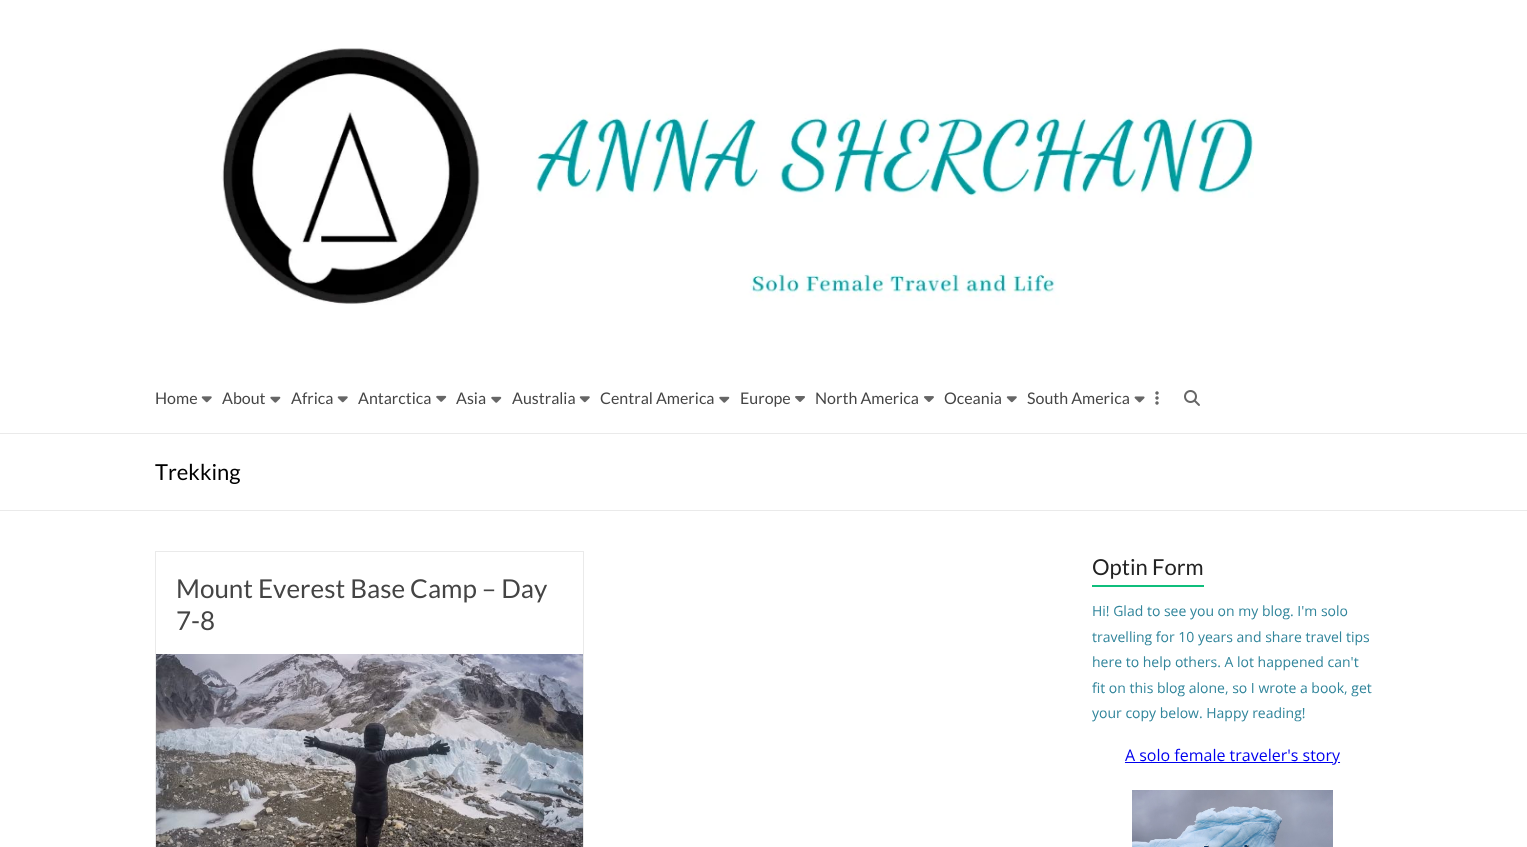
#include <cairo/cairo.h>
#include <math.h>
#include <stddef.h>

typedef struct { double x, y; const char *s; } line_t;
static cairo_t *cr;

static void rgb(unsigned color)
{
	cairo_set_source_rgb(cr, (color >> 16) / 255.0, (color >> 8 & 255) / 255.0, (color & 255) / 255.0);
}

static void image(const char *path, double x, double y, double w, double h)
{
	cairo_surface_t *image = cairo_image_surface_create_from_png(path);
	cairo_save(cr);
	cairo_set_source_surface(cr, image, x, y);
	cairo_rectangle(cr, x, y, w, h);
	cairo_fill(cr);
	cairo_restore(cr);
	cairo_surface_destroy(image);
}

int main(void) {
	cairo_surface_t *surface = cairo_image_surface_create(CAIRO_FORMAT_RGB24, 1527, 847);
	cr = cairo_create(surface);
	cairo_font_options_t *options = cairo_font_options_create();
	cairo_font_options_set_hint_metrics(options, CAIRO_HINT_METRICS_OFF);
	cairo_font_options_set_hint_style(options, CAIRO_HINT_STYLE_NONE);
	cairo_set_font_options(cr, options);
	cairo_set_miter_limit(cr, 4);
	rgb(0xffffff);
	cairo_paint(cr);
	rgb(0xeaeaea);
	cairo_rectangle(cr, 0, 433, 1527, 1);
	cairo_fill(cr);
	image("img/1.png", 220, 48, 1034, 257);
	image("img/2.png", 201, 396, 11, 7);
	image("img/3.png", 270, 396, 11, 7);
	image("img/2.png", 337, 396, 11, 7);
	image("img/4.png", 436, 395, 11, 7);
	image("img/5.png", 491, 396, 11, 7);
	image("img/6.png", 579, 396, 11, 7);
	image("img/7.png", 719, 396, 11, 7);
	image("img/8.png", 795, 396, 10, 6);
	image("img/9.png", 924, 396, 10, 6);
	image("img/10.png", 1006, 396, 11, 7);
	image("img/11.png", 1134, 396, 11, 7);
	image("img/12.png", 1155, 391, 4, 14);
	image("img/13.png", 1184, 390, 16, 16);
	cairo_rectangle(cr, 0, 510, 1527, 1);
	cairo_fill(cr);
	rgb(0x0fbe7c);
	cairo_rectangle(cr, 1092, 585, 112, 2);
	cairo_fill(cr);
	image("img/14.png", 1092, 605, 280, 242);
	cairo_rectangle(cr, 155.5, 551.5, 428, 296);
	rgb(0xeaeaea);
	cairo_set_line_width(cr, 1);
	cairo_stroke(cr);
	image("img/15.png", 156, 654, 427, 193);
	cairo_select_font_face(cr, "Lato", CAIRO_FONT_SLANT_NORMAL, CAIRO_FONT_WEIGHT_NORMAL);
	cairo_set_font_size(cr, 16);
	rgb(0x444444);
	{
		static const line_t items[] = {
			{155, 404, "Home"},
			{222, 404, "About"},
			{291, 404, "Africa"},
			{358, 404, "Antarctica"},
			{456, 404, "Asia"},
			{512, 404, "Australia"},
			{600, 404, "Central America"},
			{740, 404, "Europe"},
			{815, 404, "North America"},
			{944, 404, "Oceania"},
			{1027, 404, "South America"},
		};
		for (size_t i = 0; i < sizeof items / sizeof *items; i++) {
			cairo_move_to(cr, items[i].x, items[i].y);
			cairo_show_text(cr, items[i].s);
		}
	}
	cairo_set_font_size(cr, 22);
	rgb(0x000000);
	cairo_move_to(cr, 155, 480);
	cairo_show_text(cr, "Trekking");
	rgb(0x222222);
	cairo_move_to(cr, 1092, 575);
	cairo_show_text(cr, "Optin Form");
	cairo_set_font_size(cr, 26);
	rgb(0x444444);
	cairo_move_to(cr, 176, 598);
	cairo_show_text(cr, "Mount Everest Base Camp – Day");
	cairo_move_to(cr, 176, 630);
	cairo_show_text(cr, "7-8");
	cairo_surface_write_to_png(surface, "page.png");
	cairo_font_options_destroy(options);
	cairo_destroy(cr);
	cairo_surface_destroy(surface);
	return 0;
}
